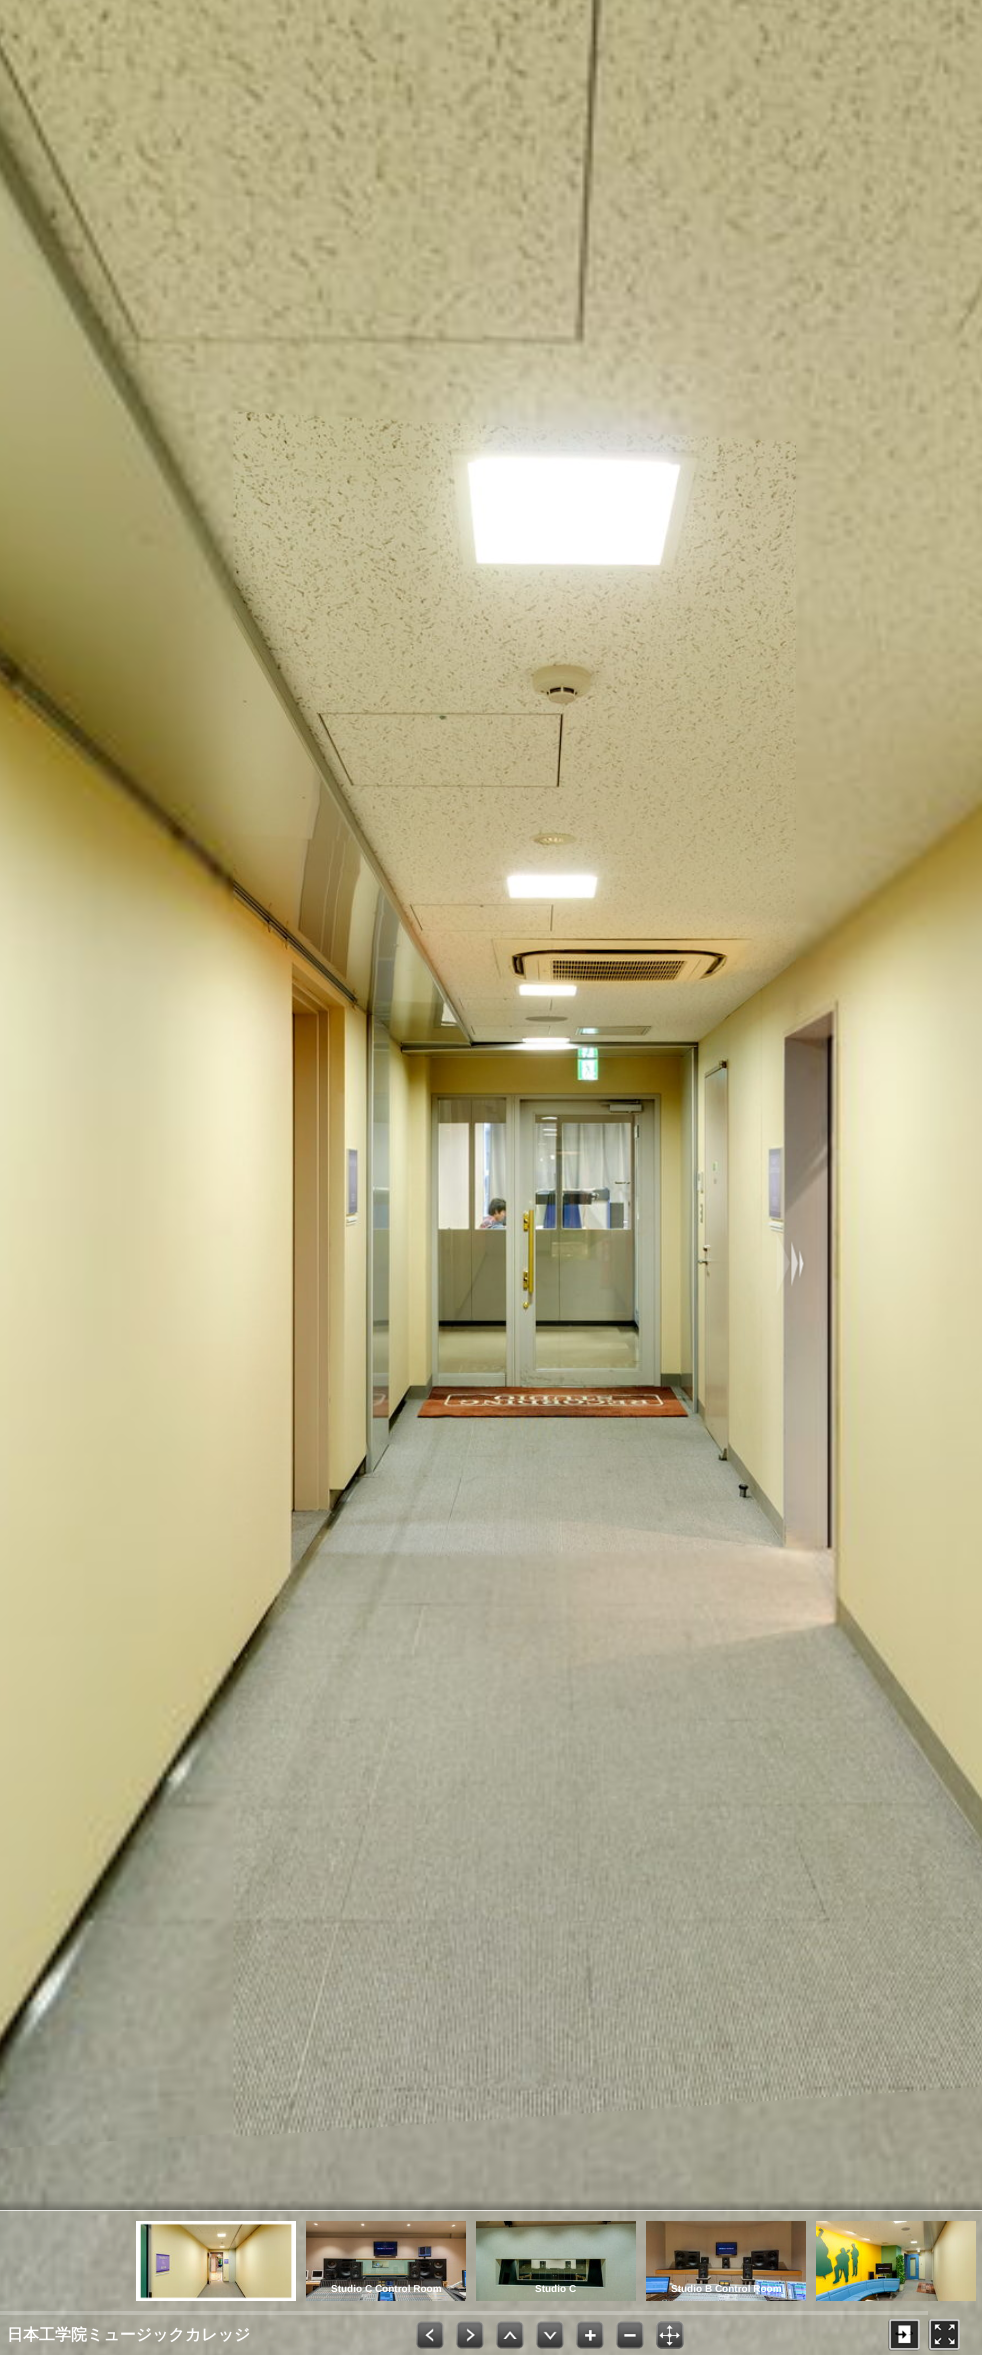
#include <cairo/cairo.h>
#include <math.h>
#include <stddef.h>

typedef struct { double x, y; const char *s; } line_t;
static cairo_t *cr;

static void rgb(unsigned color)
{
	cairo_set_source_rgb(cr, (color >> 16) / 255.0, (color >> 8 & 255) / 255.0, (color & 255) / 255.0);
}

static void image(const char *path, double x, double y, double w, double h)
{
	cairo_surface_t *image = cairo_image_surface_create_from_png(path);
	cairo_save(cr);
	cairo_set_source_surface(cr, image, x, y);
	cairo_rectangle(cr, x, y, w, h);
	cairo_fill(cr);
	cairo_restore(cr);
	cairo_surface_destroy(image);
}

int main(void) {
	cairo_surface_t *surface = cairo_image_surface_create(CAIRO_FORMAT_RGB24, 982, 2355);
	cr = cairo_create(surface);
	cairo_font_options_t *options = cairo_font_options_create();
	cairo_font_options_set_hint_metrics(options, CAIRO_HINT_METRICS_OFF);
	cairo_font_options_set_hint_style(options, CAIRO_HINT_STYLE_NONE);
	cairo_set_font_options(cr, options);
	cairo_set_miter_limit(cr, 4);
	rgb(0xffffff);
	cairo_paint(cr);
	image("img/1.png", 0, 0, 982, 2355);
	image("img/2.png", 776, 1234, 30, 60);
	image("img/3.png", 0, 2201, 982, 10);
	cairo_set_source_rgba(cr, 1, 1, 1, 0.1);
	cairo_rectangle(cr, 0, 2211, 982, 104);
	cairo_fill(cr);
	image("img/4.png", 139, 2223, 154, 76);
	image("img/5.png", 136, 2221, 160, 80);
	image("img/6.png", 306, 2221, 160, 80);
	image("img/7.png", 476, 2221, 160, 80);
	image("img/8.png", 646, 2221, 160, 80);
	image("img/9.png", 816, 2221, 160, 80);
	cairo_set_source_rgba(cr, 1, 1, 1, 0.25);
	cairo_rectangle(cr, 0, 2311, 928, 4);
	cairo_fill(cr);
	cairo_set_source_rgba(cr, 1, 1, 1, 0.1);
	cairo_rectangle(cr, 0, 2315, 982, 40);
	cairo_fill(cr);
	image("img/10.png", 416, 2321, 28, 28);
	image("img/11.png", 456, 2321, 28, 28);
	image("img/12.png", 496, 2321, 28, 28);
	image("img/13.png", 536, 2321, 28, 28);
	image("img/14.png", 576, 2321, 28, 28);
	image("img/15.png", 616, 2321, 28, 28);
	image("img/16.png", 656, 2321, 28, 28);
	image("img/17.png", 888, 2319, 32, 32);
	image("img/18.png", 928, 2319, 32, 32);
	image("img/19.png", 656, 2321, 28, 28);
	cairo_select_font_face(cr, "Liberation Sans", CAIRO_FONT_SLANT_NORMAL, CAIRO_FONT_WEIGHT_BOLD);
	cairo_set_font_size(cr, 10);
	rgb(0xffffff);
	{
		static const line_t items[] = {
			{331, 2292, "Studio C Control Room"},
			{535, 2292, "Studio C"},
			{671, 2292, "Studio B Control Room"},
		};
		for (size_t i = 0; i < sizeof items / sizeof *items; i++) {
			cairo_move_to(cr, items[i].x, items[i].y);
			cairo_show_text(cr, items[i].s);
		}
	}
	cairo_select_font_face(cr, "WenQuanYi Zen Hei", CAIRO_FONT_SLANT_NORMAL, CAIRO_FONT_WEIGHT_BOLD);
	cairo_set_font_size(cr, 16);
	cairo_move_to(cr, 7, 2340);
	cairo_show_text(cr, "日本工学院ミュージックカレッジ");
	cairo_surface_write_to_png(surface, "page.png");
	cairo_font_options_destroy(options);
	cairo_destroy(cr);
	cairo_surface_destroy(surface);
	return 0;
}
